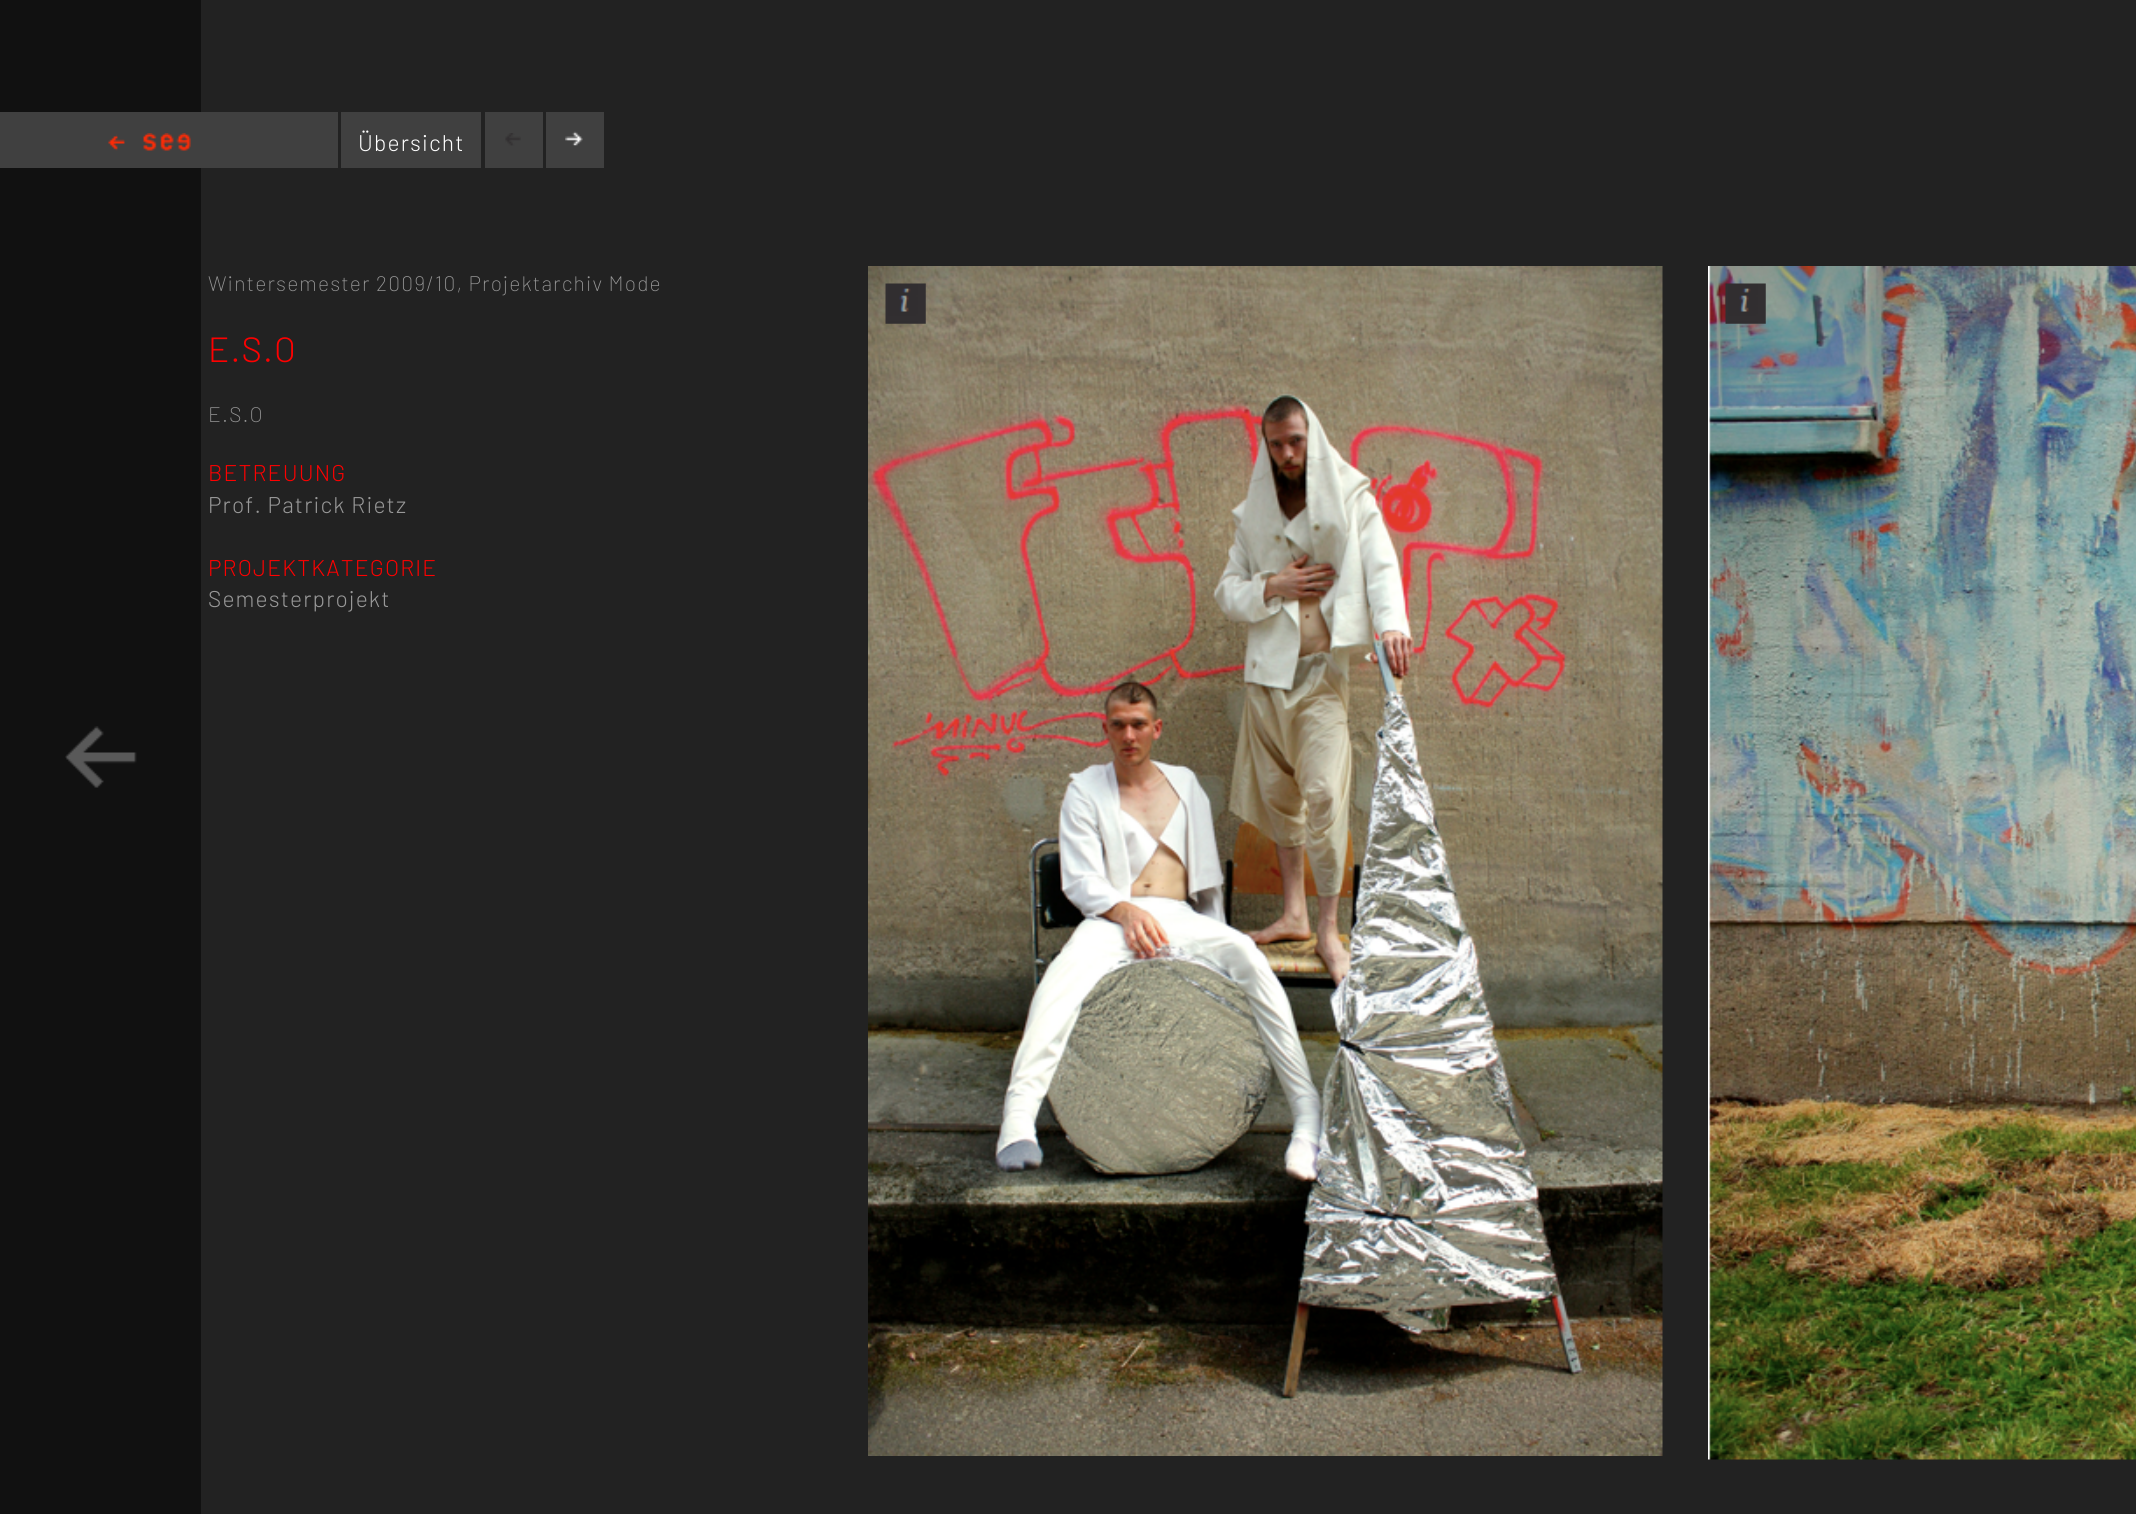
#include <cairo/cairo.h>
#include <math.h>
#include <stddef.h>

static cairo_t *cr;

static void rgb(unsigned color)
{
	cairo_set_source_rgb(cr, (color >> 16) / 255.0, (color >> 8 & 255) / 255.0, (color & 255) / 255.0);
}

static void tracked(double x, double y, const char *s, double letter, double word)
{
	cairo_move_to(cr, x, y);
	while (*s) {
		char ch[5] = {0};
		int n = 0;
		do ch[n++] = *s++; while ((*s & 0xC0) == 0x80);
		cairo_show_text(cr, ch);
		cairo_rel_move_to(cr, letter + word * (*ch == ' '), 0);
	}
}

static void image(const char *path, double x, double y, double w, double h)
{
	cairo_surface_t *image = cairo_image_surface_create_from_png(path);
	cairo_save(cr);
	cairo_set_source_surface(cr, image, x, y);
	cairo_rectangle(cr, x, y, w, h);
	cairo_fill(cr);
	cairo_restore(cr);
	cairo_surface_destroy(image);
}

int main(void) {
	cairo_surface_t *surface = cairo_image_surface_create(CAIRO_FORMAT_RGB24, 2136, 1514);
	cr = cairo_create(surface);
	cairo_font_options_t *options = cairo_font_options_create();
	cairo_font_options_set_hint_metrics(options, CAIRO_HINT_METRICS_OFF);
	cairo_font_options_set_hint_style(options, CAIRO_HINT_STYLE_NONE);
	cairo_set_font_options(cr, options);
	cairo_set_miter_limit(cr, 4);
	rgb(0x222222);
	cairo_paint(cr);
	rgb(0x111111);
	cairo_rectangle(cr, 0, 0, 201, 1514);
	cairo_fill(cr);
	image("img/1.png", 65, 726, 72, 62);
	rgb(0x404040);
	cairo_rectangle(cr, 0, 112, 338, 56);
	cairo_fill(cr);
	image("img/2.png", 108, 133, 83, 18);
	cairo_rectangle(cr, 341, 112, 140, 56);
	cairo_fill(cr);
	cairo_rectangle(cr, 485, 112, 58, 56);
	cairo_fill(cr);
	image("img/3.png", 505, 133, 16, 13);
	cairo_rectangle(cr, 546, 112, 58, 56);
	cairo_fill(cr);
	image("img/4.png", 565, 131, 18, 15);
	image("img/5.png", 868, 266, 795, 1190);
	image("img/6.png", 885, 283, 41, 41);
	image("img/7.png", 1708, 266, 428, 1194);
	image("img/8.png", 1725, 283, 41, 41);
	cairo_select_font_face(cr, "Barlow Light", CAIRO_FONT_SLANT_NORMAL, CAIRO_FONT_WEIGHT_NORMAL);
	cairo_set_font_size(cr, 22.75);
	rgb(0xffffff);
	tracked(358, 151, "Übersicht", 1.15, 0);
	cairo_select_font_face(cr, "Barlow ExtraLight", CAIRO_FONT_SLANT_NORMAL, CAIRO_FONT_WEIGHT_NORMAL);
	cairo_set_font_size(cr, 21);
	rgb(0x999999);
	tracked(208, 291, "Wintersemester 2009/10, Projektarchiv Mode", 1.15, 0);
	cairo_select_font_face(cr, "Barlow Light", CAIRO_FONT_SLANT_NORMAL, CAIRO_FONT_WEIGHT_NORMAL);
	cairo_set_font_size(cr, 35);
	rgb(0xff0000);
	tracked(208, 362, "E.S.O", 1.15, 0);
	cairo_select_font_face(cr, "Barlow ExtraLight", CAIRO_FONT_SLANT_NORMAL, CAIRO_FONT_WEIGHT_NORMAL);
	cairo_set_font_size(cr, 21);
	rgb(0x999999);
	tracked(208, 422, "E.S.O", 1.15, 0);
	cairo_select_font_face(cr, "Barlow Light", CAIRO_FONT_SLANT_NORMAL, CAIRO_FONT_WEIGHT_NORMAL);
	cairo_set_font_size(cr, 22.75);
	rgb(0xff0000);
	tracked(208, 481, "BETREUUNG", 1.15, 0);
	rgb(0x999999);
	tracked(208, 513, "Prof. Patrick Rietz", 1.15, 0);
	rgb(0xff0000);
	tracked(208, 576, "PROJEKTKATEGORIE", 1.15, 0);
	rgb(0x999999);
	tracked(208, 607, "Semesterprojekt", 1.15, 0);
	cairo_surface_write_to_png(surface, "page.png");
	cairo_font_options_destroy(options);
	cairo_destroy(cr);
	cairo_surface_destroy(surface);
	return 0;
}
